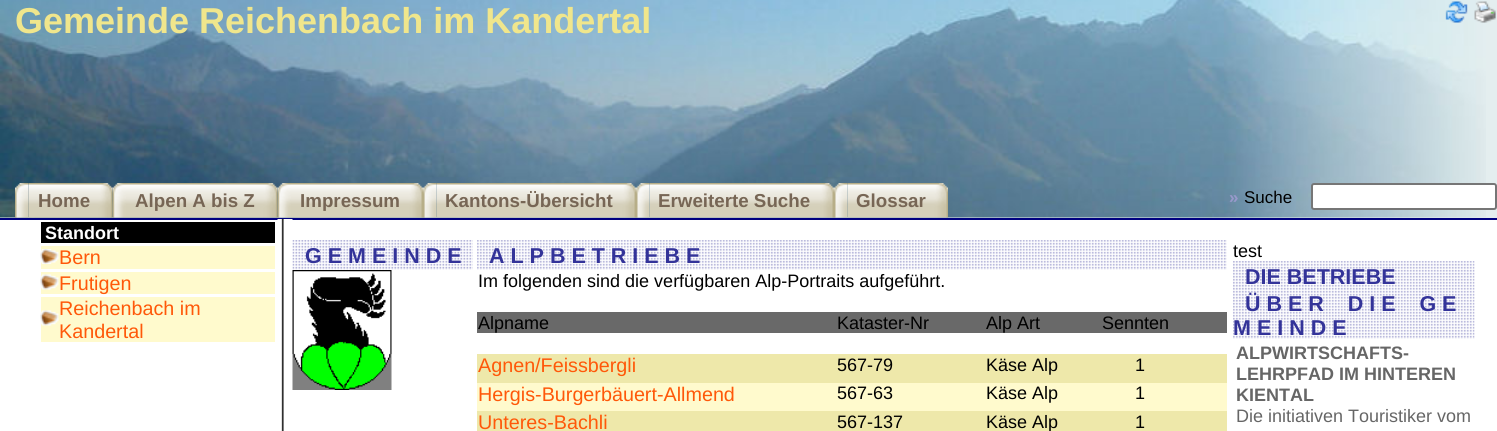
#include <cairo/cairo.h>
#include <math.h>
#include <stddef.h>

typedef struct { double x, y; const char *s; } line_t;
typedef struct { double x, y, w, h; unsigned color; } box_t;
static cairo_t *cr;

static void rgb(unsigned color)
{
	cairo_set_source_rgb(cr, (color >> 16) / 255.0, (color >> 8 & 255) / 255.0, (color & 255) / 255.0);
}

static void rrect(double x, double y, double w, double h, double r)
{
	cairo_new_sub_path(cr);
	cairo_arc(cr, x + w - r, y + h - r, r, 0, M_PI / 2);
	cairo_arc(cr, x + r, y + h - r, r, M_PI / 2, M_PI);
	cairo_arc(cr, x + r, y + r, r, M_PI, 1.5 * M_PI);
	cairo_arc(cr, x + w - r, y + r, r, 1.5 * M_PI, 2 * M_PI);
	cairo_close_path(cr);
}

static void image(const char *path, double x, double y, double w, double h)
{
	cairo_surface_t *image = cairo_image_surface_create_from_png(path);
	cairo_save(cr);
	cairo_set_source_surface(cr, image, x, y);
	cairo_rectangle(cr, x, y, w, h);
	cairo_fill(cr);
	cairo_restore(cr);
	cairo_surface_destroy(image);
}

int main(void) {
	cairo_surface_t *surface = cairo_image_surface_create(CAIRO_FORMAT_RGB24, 1497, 431);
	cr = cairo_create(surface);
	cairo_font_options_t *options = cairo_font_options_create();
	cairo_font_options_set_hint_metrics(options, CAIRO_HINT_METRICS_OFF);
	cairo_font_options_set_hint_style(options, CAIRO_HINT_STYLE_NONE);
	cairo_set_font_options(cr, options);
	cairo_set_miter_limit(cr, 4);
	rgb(0xffffff);
	cairo_paint(cr);
	rgb(0xe4eeef);
	cairo_rectangle(cr, 0, 0, 1497, 218);
	cairo_fill(cr);
	image("img/1.png", 0, 0, 1486, 218);
	rgb(0x000080);
	cairo_rectangle(cr, 0, 218, 1497, 2);
	cairo_fill(cr);
	image("img/2.png", 1445, 1, 23, 22);
	image("img/3.png", 1474, 1, 22, 22);
	image("img/4.png", 15, 183, 14, 35);
	image("img/5.png", 28, 183, 85, 35);
	image("img/6.png", 112, 183, 14, 35);
	image("img/7.png", 126, 183, 152, 35);
	image("img/8.png", 277, 183, 14, 35);
	image("img/9.png", 291, 183, 132, 35);
	image("img/10.png", 423, 183, 14, 35);
	image("img/11.png", 436, 183, 200, 35);
	image("img/12.png", 636, 183, 14, 35);
	image("img/13.png", 649, 183, 185, 35);
	image("img/14.png", 834, 183, 14, 35);
	image("img/15.png", 847, 183, 101, 35);
	rgb(0xffffff);
	rrect(1312, 184, 184, 25, 2);
	cairo_fill_preserve(cr);
	rgb(0x767676);
	cairo_stroke(cr);
	rgb(0x000000);
	cairo_rectangle(cr, 41, 222, 234, 21);
	cairo_fill(cr);
	rgb(0xfffacd);
	cairo_rectangle(cr, 41, 246, 234, 23);
	cairo_fill(cr);
	image("img/16.png", 40, 249, 19, 15);
	cairo_rectangle(cr, 41, 272, 234, 22);
	cairo_fill(cr);
	image("img/17.png", 40, 274, 19, 16);
	cairo_rectangle(cr, 41, 297, 234, 45);
	cairo_fill(cr);
	image("img/17.png", 40, 310, 19, 16);
	image("img/18.png", 277, 219, 16, 212);
	image("img/19.png", 292, 240, 181, 30);
	image("img/20.png", 292, 270, 100, 120);
	image("img/21.png", 477, 240, 750, 30);
	{
		static const box_t items[] = {
			{477, 312, 750, 21, 0x696969},
			{477, 354, 750, 29, 0xeee8aa},
			{477, 383, 750, 28, 0xfffacd},
			{477, 411, 750, 20, 0xeee8aa},
		};
		for (size_t i = 0; i < sizeof items / sizeof *items; i++) {
			rgb(items[i].color);
			cairo_rectangle(cr, items[i].x, items[i].y, items[i].w, items[i].h);
			cairo_fill(cr);
		}
	}
	image("img/22.png", 1233, 261, 242, 30);
	image("img/23.png", 1233, 291, 242, 48);
	cairo_select_font_face(cr, "Liberation Sans", CAIRO_FONT_SLANT_NORMAL, CAIRO_FONT_WEIGHT_BOLD);
	cairo_set_font_size(cr, 36);
	rgb(0xf0e68c);
	cairo_move_to(cr, 15, 33);
	cairo_show_text(cr, "Gemeinde Reichenbach im Kandertal");
	cairo_set_font_size(cr, 18.75);
	rgb(0x776655);
	{
		static const line_t items[] = {
			{38, 207, "Home"},
			{135, 207, "Alpen A bis Z"},
			{300, 207, "Impressum"},
			{445, 207, "Kantons-Übersicht"},
			{658, 207, "Erweiterte Suche"},
			{856, 207, "Glossar"},
		};
		for (size_t i = 0; i < sizeof items / sizeof *items; i++) {
			cairo_move_to(cr, items[i].x, items[i].y);
			cairo_show_text(cr, items[i].s);
		}
	}
	cairo_set_font_size(cr, 17);
	rgb(0x9999cc);
	cairo_move_to(cr, 1229, 203);
	cairo_show_text(cr, "»");
	cairo_select_font_face(cr, "Liberation Sans", CAIRO_FONT_SLANT_NORMAL, CAIRO_FONT_WEIGHT_NORMAL);
	rgb(0x000000);
	cairo_move_to(cr, 1244, 203);
	cairo_show_text(cr, "Suche");
	cairo_select_font_face(cr, "Liberation Sans", CAIRO_FONT_SLANT_NORMAL, CAIRO_FONT_WEIGHT_BOLD);
	cairo_set_font_size(cr, 18);
	rgb(0xffffff);
	cairo_move_to(cr, 45, 239);
	cairo_show_text(cr, "Standort");
	cairo_select_font_face(cr, "Liberation Sans", CAIRO_FONT_SLANT_NORMAL, CAIRO_FONT_WEIGHT_NORMAL);
	cairo_set_font_size(cr, 19.75);
	rgb(0xff5809);
	{
		static const line_t items[] = {
			{59, 264, "Bern"},
			{59, 290, "Frutigen"},
			{59, 315, "Reichenbach im"},
			{59, 338, "Kandertal"},
		};
		for (size_t i = 0; i < sizeof items / sizeof *items; i++) {
			cairo_move_to(cr, items[i].x, items[i].y);
			cairo_show_text(cr, items[i].s);
		}
	}
	cairo_select_font_face(cr, "Liberation Sans", CAIRO_FONT_SLANT_NORMAL, CAIRO_FONT_WEIGHT_BOLD);
	cairo_set_font_size(cr, 21.5);
	rgb(0x333399);
	cairo_move_to(cr, 305, 263);
	cairo_show_text(cr, "G E M E I N D E");
	cairo_move_to(cr, 489, 263);
	cairo_show_text(cr, "A L P B E T R I E B E");
	cairo_select_font_face(cr, "Liberation Sans", CAIRO_FONT_SLANT_NORMAL, CAIRO_FONT_WEIGHT_NORMAL);
	cairo_set_font_size(cr, 18);
	rgb(0x000000);
	{
		static const line_t items[] = {
			{478, 287, "Im folgenden sind die verfügbaren Alp-Portraits aufgeführt."},
			{478, 329, "Alpname"},
			{837, 329, "Kataster-Nr"},
			{986, 329, "Alp Art"},
			{1102, 329, "Sennten"},
		};
		for (size_t i = 0; i < sizeof items / sizeof *items; i++) {
			cairo_move_to(cr, items[i].x, items[i].y);
			cairo_show_text(cr, items[i].s);
		}
	}
	cairo_set_font_size(cr, 19.75);
	rgb(0xff5809);
	cairo_move_to(cr, 478, 372);
	cairo_show_text(cr, "Agnen/Feissbergli");
	cairo_set_font_size(cr, 18);
	rgb(0x000000);
	{
		static const line_t items[] = {
			{837, 371, "567-79"},
			{986, 371, "Käse Alp"},
			{1135, 371, "1"},
		};
		for (size_t i = 0; i < sizeof items / sizeof *items; i++) {
			cairo_move_to(cr, items[i].x, items[i].y);
			cairo_show_text(cr, items[i].s);
		}
	}
	cairo_set_font_size(cr, 19.75);
	rgb(0xff5809);
	cairo_move_to(cr, 478, 401);
	cairo_show_text(cr, "Hergis-Burgerbäuert-Allmend");
	cairo_set_font_size(cr, 18);
	rgb(0x000000);
	{
		static const line_t items[] = {
			{837, 399, "567-63"},
			{986, 399, "Käse Alp"},
			{1135, 399, "1"},
		};
		for (size_t i = 0; i < sizeof items / sizeof *items; i++) {
			cairo_move_to(cr, items[i].x, items[i].y);
			cairo_show_text(cr, items[i].s);
		}
	}
	cairo_set_font_size(cr, 19.75);
	rgb(0xff5809);
	cairo_move_to(cr, 478, 429);
	cairo_show_text(cr, "Unteres-Bachli");
	cairo_set_font_size(cr, 18);
	rgb(0x000000);
	{
		static const line_t items[] = {
			{837, 428, "567-137"},
			{986, 428, "Käse Alp"},
			{1135, 428, "1"},
			{1233, 257, "test"},
		};
		for (size_t i = 0; i < sizeof items / sizeof *items; i++) {
			cairo_move_to(cr, items[i].x, items[i].y);
			cairo_show_text(cr, items[i].s);
		}
	}
	cairo_select_font_face(cr, "Liberation Sans", CAIRO_FONT_SLANT_NORMAL, CAIRO_FONT_WEIGHT_BOLD);
	cairo_set_font_size(cr, 21.5);
	rgb(0x333399);
	{
		static const line_t items[] = {
			{1245, 284, "DIE BETRIEBE"},
			{1245, 311, "Ü B E R    D I E    G E"},
			{1233, 335, "M E I N D E"},
		};
		for (size_t i = 0; i < sizeof items / sizeof *items; i++) {
			cairo_move_to(cr, items[i].x, items[i].y);
			cairo_show_text(cr, items[i].s);
		}
	}
	cairo_set_font_size(cr, 18);
	rgb(0x666666);
	{
		static const line_t items[] = {
			{1236, 359, "ALPWIRTSCHAFTS-"},
			{1236, 380, "LEHRPFAD IM HINTEREN"},
			{1236, 401, "KIENTAL"},
		};
		for (size_t i = 0; i < sizeof items / sizeof *items; i++) {
			cairo_move_to(cr, items[i].x, items[i].y);
			cairo_show_text(cr, items[i].s);
		}
	}
	cairo_select_font_face(cr, "Liberation Sans", CAIRO_FONT_SLANT_NORMAL, CAIRO_FONT_WEIGHT_NORMAL);
	cairo_move_to(cr, 1236, 422);
	cairo_show_text(cr, "Die initiativen Touristiker vom");
	cairo_surface_write_to_png(surface, "page.png");
	cairo_font_options_destroy(options);
	cairo_destroy(cr);
	cairo_surface_destroy(surface);
	return 0;
}
